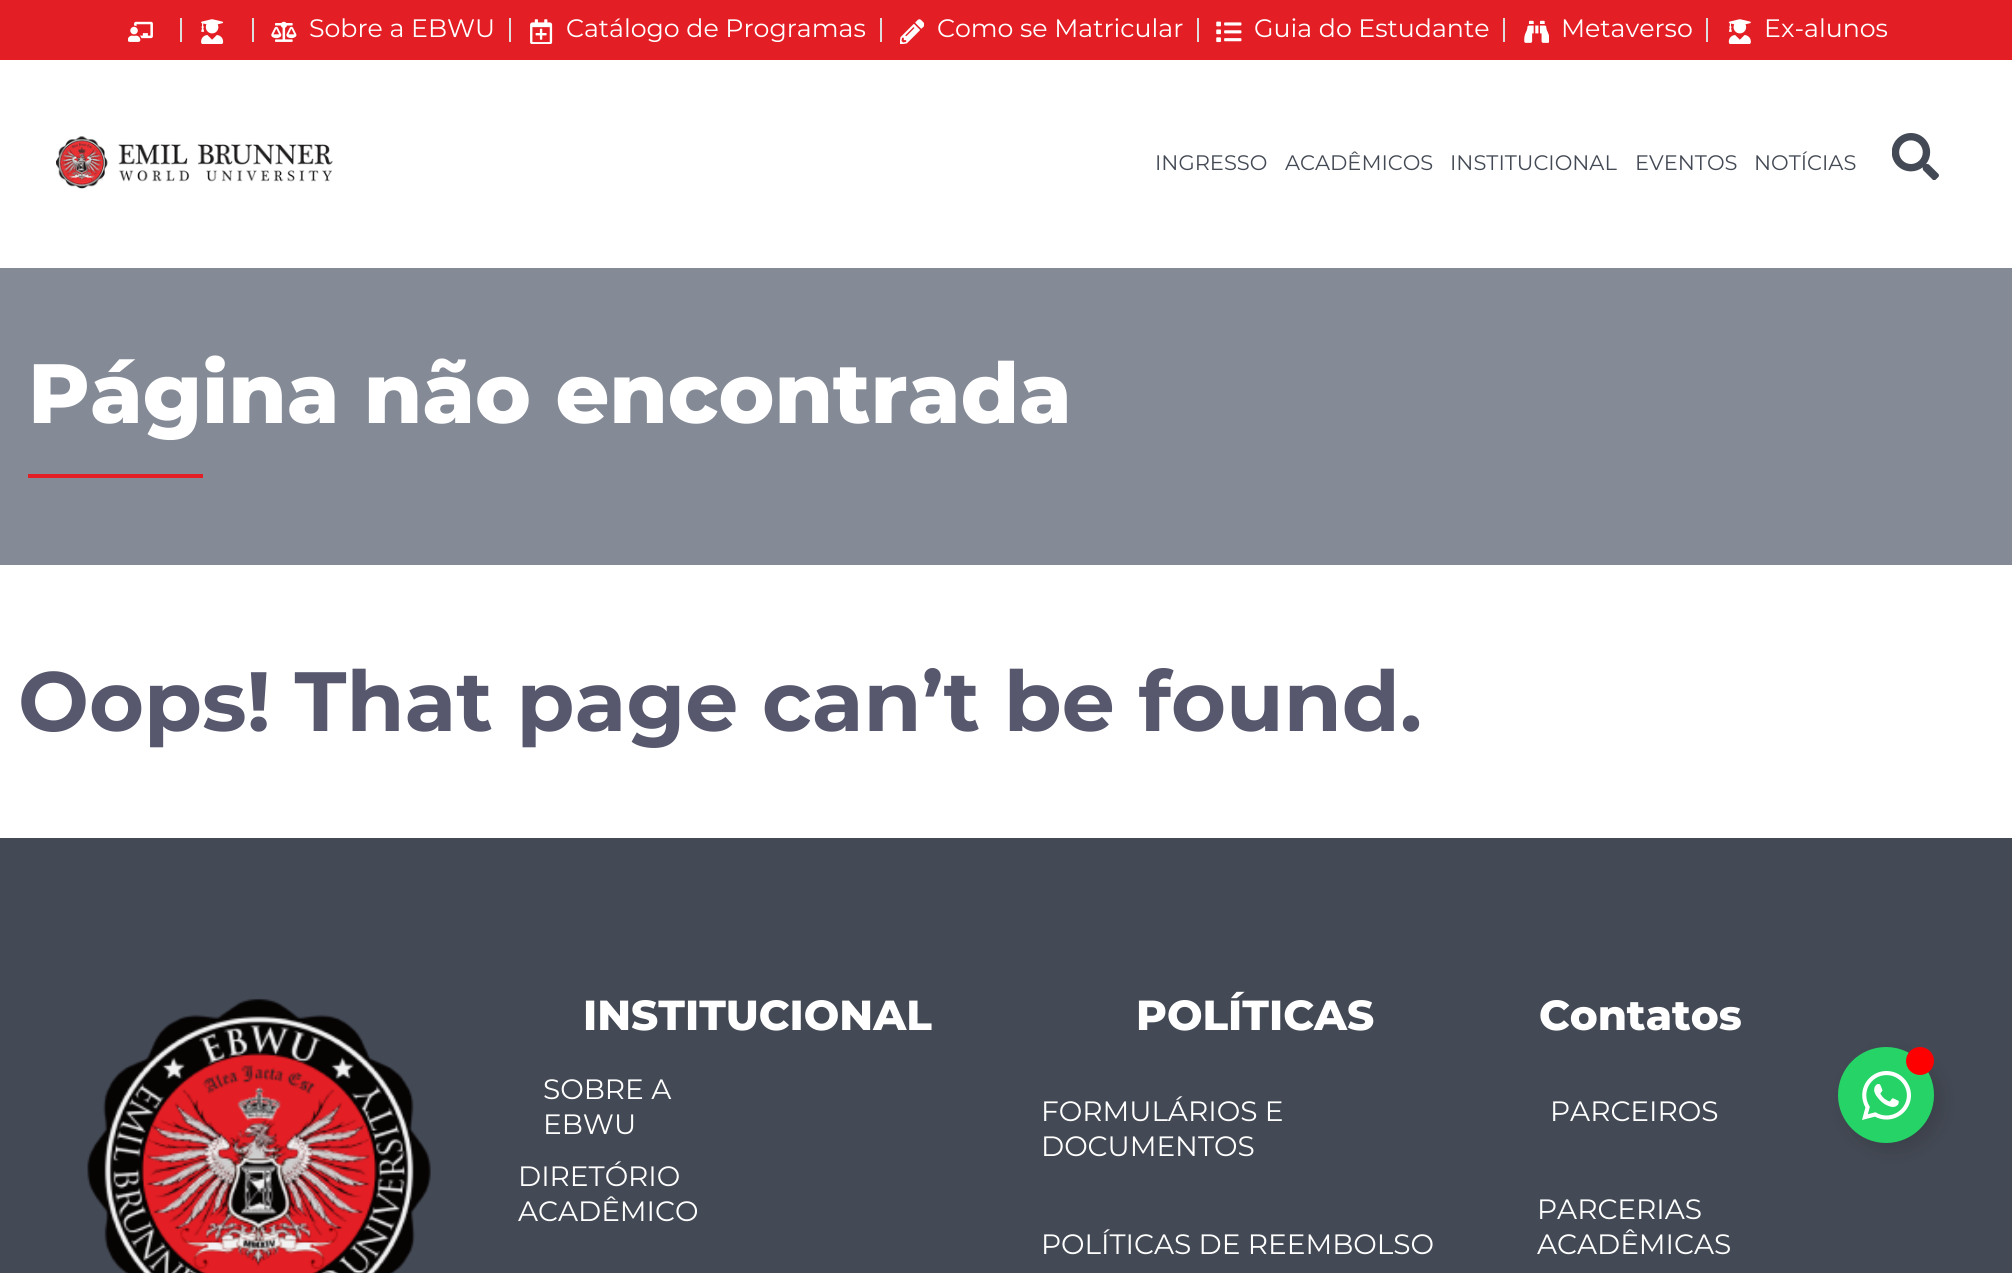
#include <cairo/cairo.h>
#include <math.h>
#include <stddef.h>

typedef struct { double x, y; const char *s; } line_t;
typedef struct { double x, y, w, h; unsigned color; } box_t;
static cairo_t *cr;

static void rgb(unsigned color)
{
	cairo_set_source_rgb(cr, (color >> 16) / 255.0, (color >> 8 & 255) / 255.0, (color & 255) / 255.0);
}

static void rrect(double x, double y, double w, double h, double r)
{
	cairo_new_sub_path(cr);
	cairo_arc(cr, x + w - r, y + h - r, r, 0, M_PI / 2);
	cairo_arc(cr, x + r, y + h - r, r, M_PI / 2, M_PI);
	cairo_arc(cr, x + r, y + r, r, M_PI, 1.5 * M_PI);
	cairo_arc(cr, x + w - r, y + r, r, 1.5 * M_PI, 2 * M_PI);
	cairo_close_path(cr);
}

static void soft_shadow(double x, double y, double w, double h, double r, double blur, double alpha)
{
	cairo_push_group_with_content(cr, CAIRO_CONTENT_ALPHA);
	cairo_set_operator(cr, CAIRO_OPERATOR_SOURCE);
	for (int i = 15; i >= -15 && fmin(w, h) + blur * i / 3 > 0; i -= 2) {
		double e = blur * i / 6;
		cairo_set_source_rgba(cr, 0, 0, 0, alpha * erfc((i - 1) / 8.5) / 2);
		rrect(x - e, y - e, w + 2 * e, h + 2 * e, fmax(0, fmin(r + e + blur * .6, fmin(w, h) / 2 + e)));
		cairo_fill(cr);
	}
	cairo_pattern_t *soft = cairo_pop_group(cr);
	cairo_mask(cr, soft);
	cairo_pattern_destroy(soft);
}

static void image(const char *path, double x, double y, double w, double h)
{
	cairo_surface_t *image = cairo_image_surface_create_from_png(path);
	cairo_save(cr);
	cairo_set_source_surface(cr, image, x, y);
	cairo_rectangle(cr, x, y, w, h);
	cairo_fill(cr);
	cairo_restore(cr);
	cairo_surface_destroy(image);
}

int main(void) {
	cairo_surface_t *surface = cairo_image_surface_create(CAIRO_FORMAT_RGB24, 2012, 1273);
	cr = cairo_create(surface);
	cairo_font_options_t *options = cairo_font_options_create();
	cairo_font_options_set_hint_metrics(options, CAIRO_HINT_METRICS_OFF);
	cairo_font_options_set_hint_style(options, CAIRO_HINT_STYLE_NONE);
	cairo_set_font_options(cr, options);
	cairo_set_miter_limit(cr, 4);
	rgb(0xffffff);
	cairo_paint(cr);
	rgb(0xe41e25);
	cairo_rectangle(cr, 0, 0, 2012, 60);
	cairo_fill(cr);
	image("img/1.png", 128, 21, 25, 21);
	rgb(0xdddddd);
	cairo_rectangle(cr, 180, 18, 2, 24);
	cairo_fill(cr);
	image("img/2.png", 201, 19, 23, 25);
	cairo_rectangle(cr, 252, 18, 2, 24);
	cairo_fill(cr);
	image("img/3.png", 271, 21, 26, 21);
	cairo_rectangle(cr, 509, 18, 2, 24);
	cairo_fill(cr);
	image("img/4.png", 530, 19, 23, 25);
	cairo_rectangle(cr, 880, 18, 2, 24);
	cairo_fill(cr);
	image("img/5.png", 900, 19, 24, 25);
	cairo_rectangle(cr, 1197, 18, 2, 24);
	cairo_fill(cr);
	image("img/6.png", 1216, 21, 26, 22);
	cairo_rectangle(cr, 1503, 18, 2, 24);
	cairo_fill(cr);
	image("img/7.png", 1524, 20, 25, 23);
	cairo_rectangle(cr, 1706, 18, 2, 24);
	cairo_fill(cr);
	image("img/8.png", 1728, 19, 23, 25);
	image("img/9.png", 56, 136, 277, 53);
	image("img/10.png", 1892, 133, 47, 47);
	{
		static const box_t items[] = {
			{0, 268, 2012, 297, 0x848a96},
			{28, 474, 175, 4, 0xe41e25},
			{0, 838, 2012, 435, 0x444a55},
		};
		for (size_t i = 0; i < sizeof items / sizeof *items; i++) {
			rgb(items[i].color);
			cairo_rectangle(cr, items[i].x, items[i].y, items[i].w, items[i].h);
			cairo_fill(cr);
		}
	}
	image("img/11.png", 87, 998, 344, 275);
	rgb(0x000000);
	soft_shadow(1845, 1054, 96, 96, 48, 9, 0.15);
	rgb(0x25d366);
	cairo_arc(cr, 1886, 1095, 48, 0, 2 * M_PI);
	cairo_fill(cr);
	image("img/12.png", 1862, 1071, 49, 49);
	rgb(0xff0000);
	cairo_arc(cr, 1920, 1061, 14, 0, 2 * M_PI);
	cairo_fill(cr);
	cairo_select_font_face(cr, "Montserrat", CAIRO_FONT_SLANT_NORMAL, CAIRO_FONT_WEIGHT_NORMAL);
	cairo_set_font_size(cr, 25.25);
	rgb(0xffffff);
	{
		static const line_t items[] = {
			{309, 37, "Sobre a EBWU"},
			{566, 37, "Catálogo de Programas"},
			{937, 37, "Como se Matricular"},
			{1254, 37, "Guia do Estudante"},
			{1561, 37, "Metaverso"},
			{1764, 37, "Ex-alunos"},
		};
		for (size_t i = 0; i < sizeof items / sizeof *items; i++) {
			cairo_move_to(cr, items[i].x, items[i].y);
			cairo_show_text(cr, items[i].s);
		}
	}
	cairo_set_font_size(cr, 21);
	rgb(0x444a55);
	{
		static const line_t items[] = {
			{1155, 170, "INGRESSO"},
			{1285, 170, "ACADÊMICOS"},
			{1450, 170, "INSTITUCIONAL"},
			{1635, 170, "EVENTOS"},
			{1754, 170, "NOTÍCIAS"},
		};
		for (size_t i = 0; i < sizeof items / sizeof *items; i++) {
			cairo_move_to(cr, items[i].x, items[i].y);
			cairo_show_text(cr, items[i].s);
		}
	}
	cairo_select_font_face(cr, "Montserrat ExtraBold", CAIRO_FONT_SLANT_NORMAL, CAIRO_FONT_WEIGHT_NORMAL);
	cairo_set_font_size(cr, 84);
	rgb(0xffffff);
	cairo_move_to(cr, 28, 423);
	cairo_show_text(cr, "Página não encontrada");
	cairo_select_font_face(cr, "Montserrat", CAIRO_FONT_SLANT_NORMAL, CAIRO_FONT_WEIGHT_BOLD);
	rgb(0x57586e);
	cairo_move_to(cr, 18, 731);
	cairo_show_text(cr, "Oops! That page can’t be found.");
	cairo_select_font_face(cr, "Montserrat ExtraBold", CAIRO_FONT_SLANT_NORMAL, CAIRO_FONT_WEIGHT_NORMAL);
	cairo_set_font_size(cr, 42);
	rgb(0xffffff);
	cairo_move_to(cr, 583, 1030);
	cairo_show_text(cr, "INSTITUCIONAL");
	cairo_select_font_face(cr, "Montserrat", CAIRO_FONT_SLANT_NORMAL, CAIRO_FONT_WEIGHT_NORMAL);
	cairo_set_font_size(cr, 28);
	{
		static const line_t items[] = {
			{543, 1099, "SOBRE A"},
			{543, 1134, "EBWU"},
			{518, 1186, "DIRETÓRIO"},
			{518, 1221, "ACADÊMICO"},
		};
		for (size_t i = 0; i < sizeof items / sizeof *items; i++) {
			cairo_move_to(cr, items[i].x, items[i].y);
			cairo_show_text(cr, items[i].s);
		}
	}
	cairo_select_font_face(cr, "Montserrat ExtraBold", CAIRO_FONT_SLANT_NORMAL, CAIRO_FONT_WEIGHT_NORMAL);
	cairo_set_font_size(cr, 42);
	cairo_move_to(cr, 1136, 1030);
	cairo_show_text(cr, "POLÍTICAS");
	cairo_select_font_face(cr, "Montserrat", CAIRO_FONT_SLANT_NORMAL, CAIRO_FONT_WEIGHT_NORMAL);
	cairo_set_font_size(cr, 28);
	{
		static const line_t items[] = {
			{1041, 1121, "FORMULÁRIOS E"},
			{1041, 1156, "DOCUMENTOS"},
			{1041, 1254, "POLÍTICAS DE REEMBOLSO"},
		};
		for (size_t i = 0; i < sizeof items / sizeof *items; i++) {
			cairo_move_to(cr, items[i].x, items[i].y);
			cairo_show_text(cr, items[i].s);
		}
	}
	cairo_select_font_face(cr, "Montserrat ExtraBold", CAIRO_FONT_SLANT_NORMAL, CAIRO_FONT_WEIGHT_NORMAL);
	cairo_set_font_size(cr, 42);
	cairo_move_to(cr, 1539, 1030);
	cairo_show_text(cr, "Contatos");
	cairo_select_font_face(cr, "Montserrat", CAIRO_FONT_SLANT_NORMAL, CAIRO_FONT_WEIGHT_NORMAL);
	cairo_set_font_size(cr, 28);
	{
		static const line_t items[] = {
			{1550, 1121, "PARCEIROS"},
			{1537, 1219, "PARCERIAS"},
			{1537, 1254, "ACADÊMICAS"},
		};
		for (size_t i = 0; i < sizeof items / sizeof *items; i++) {
			cairo_move_to(cr, items[i].x, items[i].y);
			cairo_show_text(cr, items[i].s);
		}
	}
	cairo_surface_write_to_png(surface, "page.png");
	cairo_font_options_destroy(options);
	cairo_destroy(cr);
	cairo_surface_destroy(surface);
	return 0;
}
